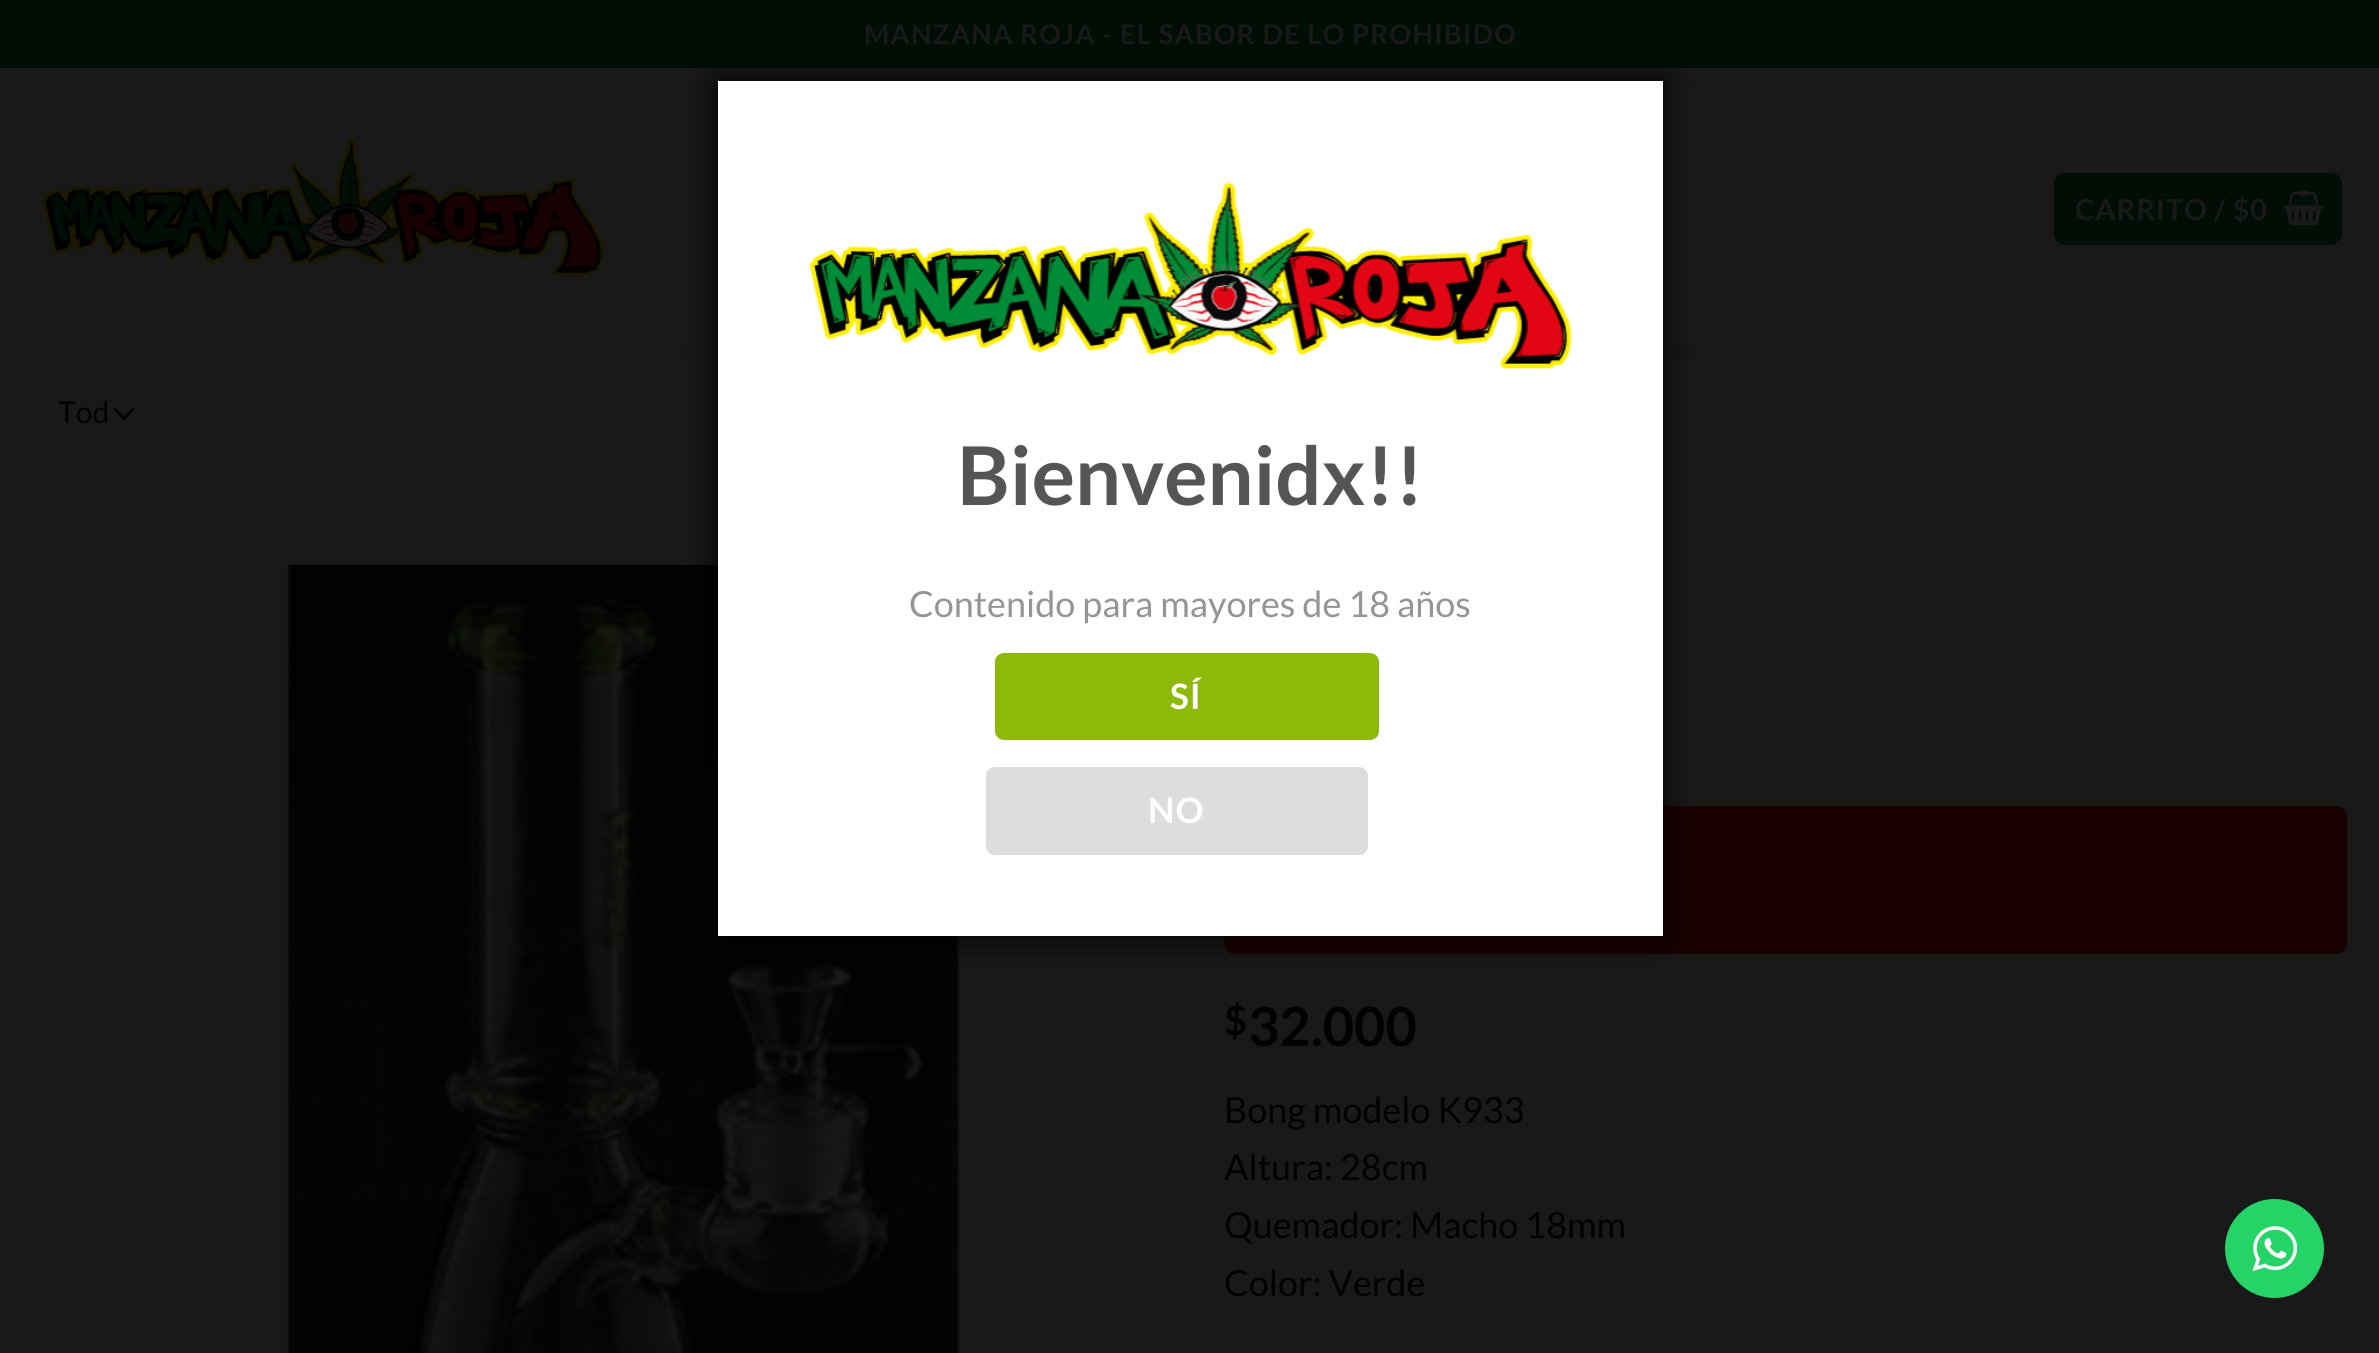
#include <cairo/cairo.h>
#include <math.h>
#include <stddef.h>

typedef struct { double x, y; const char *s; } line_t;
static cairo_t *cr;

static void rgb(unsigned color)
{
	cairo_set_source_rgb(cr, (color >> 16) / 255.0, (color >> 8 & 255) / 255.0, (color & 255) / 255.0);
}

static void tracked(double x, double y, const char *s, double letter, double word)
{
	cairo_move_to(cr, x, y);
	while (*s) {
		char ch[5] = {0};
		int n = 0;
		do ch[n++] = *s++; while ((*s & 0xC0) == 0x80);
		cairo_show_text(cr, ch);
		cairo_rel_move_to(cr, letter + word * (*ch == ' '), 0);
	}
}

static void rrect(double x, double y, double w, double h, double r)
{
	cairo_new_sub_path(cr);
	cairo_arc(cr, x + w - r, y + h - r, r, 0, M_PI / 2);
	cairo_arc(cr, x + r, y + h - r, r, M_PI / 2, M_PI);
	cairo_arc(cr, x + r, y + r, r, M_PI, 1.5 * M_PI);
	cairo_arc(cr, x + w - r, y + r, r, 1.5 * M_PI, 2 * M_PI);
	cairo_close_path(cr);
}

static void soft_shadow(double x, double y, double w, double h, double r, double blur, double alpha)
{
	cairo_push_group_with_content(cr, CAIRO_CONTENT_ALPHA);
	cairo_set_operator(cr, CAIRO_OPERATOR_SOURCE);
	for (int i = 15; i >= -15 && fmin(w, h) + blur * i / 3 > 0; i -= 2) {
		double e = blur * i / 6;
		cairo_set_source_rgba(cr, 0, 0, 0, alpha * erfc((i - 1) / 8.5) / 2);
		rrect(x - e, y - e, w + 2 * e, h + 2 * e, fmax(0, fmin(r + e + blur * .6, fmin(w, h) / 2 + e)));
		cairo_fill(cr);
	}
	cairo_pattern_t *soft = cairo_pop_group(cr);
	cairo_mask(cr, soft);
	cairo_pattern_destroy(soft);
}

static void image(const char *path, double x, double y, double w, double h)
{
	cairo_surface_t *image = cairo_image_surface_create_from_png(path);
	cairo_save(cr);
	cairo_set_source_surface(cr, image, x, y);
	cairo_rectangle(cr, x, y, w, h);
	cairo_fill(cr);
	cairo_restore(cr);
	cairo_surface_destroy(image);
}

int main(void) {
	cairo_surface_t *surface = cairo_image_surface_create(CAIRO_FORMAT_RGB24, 2379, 1353);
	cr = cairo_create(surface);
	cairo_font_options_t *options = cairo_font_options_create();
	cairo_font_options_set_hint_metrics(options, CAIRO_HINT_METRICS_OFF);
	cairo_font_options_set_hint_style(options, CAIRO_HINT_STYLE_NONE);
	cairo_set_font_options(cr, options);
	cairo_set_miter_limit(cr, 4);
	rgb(0x191919);
	cairo_paint(cr);
	rgb(0x000e05);
	cairo_rectangle(cr, 0, 0, 2379, 68);
	cairo_fill(cr);
	image("img/1.png", 41, 139, 564, 137);
	rrect(2054, 173, 288, 72, 11);
	cairo_fill(cr);
	image("img/2.png", 2283, 190, 41, 36);
	rgb(0x161616);
	cairo_rectangle(cr, 34, 351, 2313, 2);
	cairo_fill(cr);
	cairo_new_path(cr);
	cairo_move_to(cr, 115, 409.5);
	cairo_line_to(cr, 124, 418.5);
	cairo_line_to(cr, 133, 409.5);
	rgb(0x050505);
	cairo_set_line_width(cr, 3);
	cairo_set_line_cap(cr, CAIRO_LINE_CAP_ROUND);
	cairo_set_line_join(cr, CAIRO_LINE_JOIN_ROUND);
	cairo_stroke(cr);
	image("img/3.png", 287, 564, 673, 789);
	rgb(0x190101);
	rrect(1224, 806, 1123, 148, 11);
	cairo_fill(cr);
	rgb(0x000000);
	soft_shadow(718, 81, 945, 855, 0, 17, 1);
	rgb(0xffffff);
	cairo_rectangle(cr, 718, 81, 945, 855);
	cairo_fill(cr);
	image("img/4.png", 809, 182, 763, 187);
	rgb(0x8eb908);
	rrect(995, 653, 384, 87, 9);
	cairo_fill(cr);
	rgb(0xdddddd);
	rrect(986, 767, 382, 88, 9);
	cairo_fill(cr);
	rgb(0x25d366);
	cairo_arc(cr, 2274.5, 1248.5, 49.5, 0, 2 * M_PI);
	cairo_fill(cr);
	image("img/5.png", 2252, 1226, 45, 45);
	cairo_select_font_face(cr, "Lato", CAIRO_FONT_SLANT_NORMAL, CAIRO_FONT_WEIGHT_BOLD);
	cairo_set_font_size(cr, 27);
	rgb(0x191919);
	tracked(864, 44, "MANZANA ROJA - EL SABOR DE LO PROHIBIDO", 1.35, 0);
	cairo_set_font_size(cr, 28.75);
	tracked(2075, 220, "CARRITO / $0", 0.9, 0);
	cairo_save(cr);
	cairo_rectangle(cr, 59, 389, 56, 48);
	cairo_clip(cr);
	cairo_select_font_face(cr, "Lato", CAIRO_FONT_SLANT_NORMAL, CAIRO_FONT_WEIGHT_NORMAL);
	cairo_set_font_size(cr, 30);
	rgb(0x020202);
	cairo_move_to(cr, 58, 423);
	cairo_show_text(cr, "Tod");
	cairo_restore(cr);
	cairo_set_font_size(cr, 40);
	rgb(0x020202);
	cairo_move_to(cr, 1224, 1035);
	cairo_show_text(cr, "$");
	cairo_set_font_size(cr, 54);
	cairo_move_to(cr, 1248, 1046);
	cairo_show_text(cr, "32.000");
	cairo_select_font_face(cr, "Lato", CAIRO_FONT_SLANT_NORMAL, CAIRO_FONT_WEIGHT_NORMAL);
	cairo_set_font_size(cr, 36);
	{
		static const line_t items[] = {
			{1224, 1123, "Bong modelo K933"},
			{1224, 1180, "Altura: 28cm"},
			{1224, 1238, "Quemador: Macho 18mm"},
			{1224, 1296, "Color: Verde"},
		};
		for (size_t i = 0; i < sizeof items / sizeof *items; i++) {
			cairo_move_to(cr, items[i].x, items[i].y);
			cairo_show_text(cr, items[i].s);
		}
	}
	cairo_select_font_face(cr, "Lato", CAIRO_FONT_SLANT_NORMAL, CAIRO_FONT_WEIGHT_BOLD);
	cairo_set_font_size(cr, 81);
	rgb(0x555555);
	cairo_move_to(cr, 957, 505);
	cairo_show_text(cr, "Bienvenidx!!");
	cairo_select_font_face(cr, "Lato", CAIRO_FONT_SLANT_NORMAL, CAIRO_FONT_WEIGHT_NORMAL);
	cairo_set_font_size(cr, 36);
	rgb(0x959595);
	cairo_move_to(cr, 909, 617);
	cairo_show_text(cr, "Contenido para mayores de 18 años");
	cairo_select_font_face(cr, "Lato", CAIRO_FONT_SLANT_NORMAL, CAIRO_FONT_WEIGHT_BOLD);
	cairo_set_font_size(cr, 35);
	rgb(0xffffff);
	tracked(1170, 709, "SÍ", 1, 0);
	tracked(1148, 823, "NO", 1, 0);
	cairo_surface_write_to_png(surface, "page.png");
	cairo_font_options_destroy(options);
	cairo_destroy(cr);
	cairo_surface_destroy(surface);
	return 0;
}
